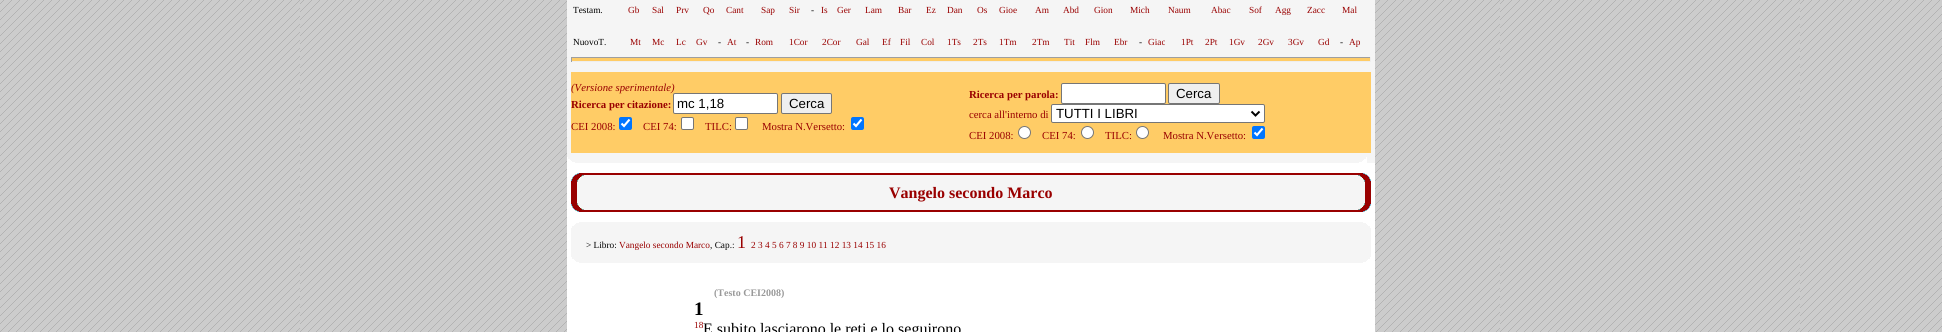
#include <cairo/cairo.h>
#include <math.h>
#include <stddef.h>

typedef struct { double x, y; const char *s; } line_t;
typedef struct { double x, y, w, h; unsigned color; } box_t;
static cairo_t *cr;

static void rgb(unsigned color)
{
	cairo_set_source_rgb(cr, (color >> 16) / 255.0, (color >> 8 & 255) / 255.0, (color & 255) / 255.0);
}

static void rrect(double x, double y, double w, double h, double r)
{
	cairo_new_sub_path(cr);
	cairo_arc(cr, x + w - r, y + h - r, r, 0, M_PI / 2);
	cairo_arc(cr, x + r, y + h - r, r, M_PI / 2, M_PI);
	cairo_arc(cr, x + r, y + r, r, M_PI, 1.5 * M_PI);
	cairo_arc(cr, x + w - r, y + r, r, 1.5 * M_PI, 2 * M_PI);
	cairo_close_path(cr);
}

static void image(const char *path, double x, double y, double w, double h)
{
	cairo_surface_t *image = cairo_image_surface_create_from_png(path);
	cairo_save(cr);
	cairo_set_source_surface(cr, image, x, y);
	cairo_rectangle(cr, x, y, w, h);
	cairo_fill(cr);
	cairo_restore(cr);
	cairo_surface_destroy(image);
}

int main(void) {
	cairo_surface_t *surface = cairo_image_surface_create(CAIRO_FORMAT_RGB24, 1942, 332);
	cr = cairo_create(surface);
	cairo_font_options_t *options = cairo_font_options_create();
	cairo_font_options_set_hint_metrics(options, CAIRO_HINT_METRICS_OFF);
	cairo_font_options_set_hint_style(options, CAIRO_HINT_STYLE_NONE);
	cairo_set_font_options(cr, options);
	cairo_set_miter_limit(cr, 4);
	rgb(0xffffff);
	cairo_paint(cr);
	image("img/1.png", 0, 0, 1942, 332);
	{
		static const box_t items[] = {
			{567, 163, 808, 169, 0xffffff},
			{567, 0, 808, 163, 0xf5f5f5},
			{571, 58, 800, 3, 0xffcc66},
			{571, 57, 800, 1, 0x9f9f9f},
			{1370, 57, 1, 5, 0xeeeeee},
			{571, 61, 800, 1, 0xeeeeee},
			{571, 57, 1, 5, 0x9f9f9f},
			{571, 72, 800, 81, 0xffcc66},
		};
		for (size_t i = 0; i < sizeof items / sizeof *items; i++) {
			rgb(items[i].color);
			cairo_rectangle(cr, items[i].x, items[i].y, items[i].w, items[i].h);
			cairo_fill(cr);
		}
	}
	rgb(0xefefef);
	rrect(781.5, 93.5, 50, 20, 1.5);
	cairo_fill_preserve(cr);
	rgb(0x767676);
	cairo_set_line_width(cr, 1);
	cairo_stroke(cr);
	rgb(0x0075ff);
	rrect(619, 117, 13, 13, 2);
	cairo_fill(cr);
	cairo_new_path(cr);
	cairo_move_to(cr, 621.5, 123.5);
	cairo_line_to(cr, 624, 126);
	cairo_line_to(cr, 629.5, 119.5);
	rgb(0xffffff);
	cairo_set_line_width(cr, 2.1);
	cairo_stroke(cr);
	rrect(681.5, 117.5, 12, 12, 1.5);
	cairo_fill_preserve(cr);
	rgb(0x767676);
	cairo_set_line_width(cr, 1);
	cairo_stroke(cr);
	rgb(0xffffff);
	rrect(735.5, 117.5, 12, 12, 1.5);
	cairo_fill_preserve(cr);
	rgb(0x767676);
	cairo_stroke(cr);
	rgb(0x0075ff);
	rrect(851, 117, 13, 13, 2);
	cairo_fill(cr);
	cairo_new_path(cr);
	cairo_move_to(cr, 853.5, 123.5);
	cairo_line_to(cr, 856, 126);
	cairo_line_to(cr, 861.5, 119.5);
	rgb(0xffffff);
	cairo_set_line_width(cr, 2.1);
	cairo_stroke(cr);
	rrect(1061.5, 83.5, 104, 20, 1.5);
	cairo_fill_preserve(cr);
	rgb(0x767676);
	cairo_set_line_width(cr, 1);
	cairo_stroke(cr);
	rgb(0xefefef);
	rrect(1168.5, 83.5, 51, 20, 1.5);
	cairo_fill_preserve(cr);
	rgb(0x767676);
	cairo_stroke(cr);
	rgb(0xffffff);
	rrect(1051.5, 104.5, 213, 18, 1.5);
	cairo_fill_preserve(cr);
	rgb(0x767676);
	cairo_stroke(cr);
	cairo_new_path(cr);
	cairo_move_to(cr, 1251.5, 111.5);
	cairo_line_to(cr, 1255.5, 115.5);
	cairo_line_to(cr, 1259.5, 111.5);
	rgb(0x000000);
	cairo_set_line_width(cr, 2);
	cairo_stroke(cr);
	rgb(0xffffff);
	cairo_arc(cr, 1024.5, 132.5, 6, 0, 2 * M_PI);
	cairo_fill_preserve(cr);
	rgb(0x767676);
	cairo_set_line_width(cr, 1);
	cairo_stroke(cr);
	rgb(0xffffff);
	cairo_arc(cr, 1087.5, 132.5, 6, 0, 2 * M_PI);
	cairo_fill_preserve(cr);
	rgb(0x767676);
	cairo_stroke(cr);
	rgb(0xffffff);
	cairo_arc(cr, 1142.5, 132.5, 6, 0, 2 * M_PI);
	cairo_fill_preserve(cr);
	rgb(0x767676);
	cairo_stroke(cr);
	rgb(0x0075ff);
	rrect(1252, 126, 13, 13, 2);
	cairo_fill(cr);
	cairo_new_path(cr);
	cairo_move_to(cr, 1254.5, 132.5);
	cairo_line_to(cr, 1257, 135);
	cairo_line_to(cr, 1262.5, 128.5);
	rgb(0xffffff);
	cairo_set_line_width(cr, 2.1);
	cairo_stroke(cr);
	image("img/2.png", 567, 157, 800, 6);
	rgb(0xf5f5f5);
	cairo_rectangle(cr, 577, 183, 788, 19);
	cairo_fill(cr);
	image("img/3.png", 571, 173, 800, 10);
	rgb(0x990000);
	cairo_rectangle(cr, 571, 183, 6, 19);
	cairo_fill(cr);
	cairo_rectangle(cr, 1365, 183, 6, 19);
	cairo_fill(cr);
	image("img/4.png", 571, 202, 800, 10);
	rgb(0xf5f5f5);
	cairo_rectangle(cr, 571, 228, 800, 29);
	cairo_fill(cr);
	image("img/5.png", 571, 222, 800, 6);
	image("img/2.png", 571, 257, 800, 6);
	cairo_select_font_face(cr, "Liberation Serif", CAIRO_FONT_SLANT_NORMAL, CAIRO_FONT_WEIGHT_NORMAL);
	cairo_set_font_size(cr, 9.3);
	rgb(0x000000);
	cairo_move_to(cr, 573, 13);
	cairo_show_text(cr, "Testam.");
	rgb(0x990000);
	{
		static const line_t items[] = {
			{628, 13, "Gb"},
			{652, 13, "Sal"},
			{676, 13, "Prv"},
			{703, 13, "Qo"},
			{726, 13, "Cant"},
			{761, 13, "Sap"},
			{789, 13, "Sir"},
		};
		for (size_t i = 0; i < sizeof items / sizeof *items; i++) {
			cairo_move_to(cr, items[i].x, items[i].y);
			cairo_show_text(cr, items[i].s);
		}
	}
	rgb(0x000000);
	cairo_move_to(cr, 811, 13);
	cairo_show_text(cr, "-");
	rgb(0x990000);
	{
		static const line_t items[] = {
			{821, 13, "Is"},
			{837, 13, "Ger"},
			{865, 13, "Lam"},
			{898, 13, "Bar"},
			{926, 13, "Ez"},
			{947, 13, "Dan"},
			{977, 13, "Os"},
			{999, 13, "Gioe"},
			{1035, 13, "Am"},
			{1063, 13, "Abd"},
			{1094, 13, "Gion"},
			{1130, 13, "Mich"},
			{1168, 13, "Naum"},
			{1211, 13, "Abac"},
			{1249, 13, "Sof"},
			{1275, 13, "Agg"},
			{1307, 13, "Zacc"},
			{1342, 13, "Mal"},
		};
		for (size_t i = 0; i < sizeof items / sizeof *items; i++) {
			cairo_move_to(cr, items[i].x, items[i].y);
			cairo_show_text(cr, items[i].s);
		}
	}
	rgb(0x000000);
	cairo_move_to(cr, 573, 45);
	cairo_show_text(cr, "NuovoT.");
	rgb(0x990000);
	{
		static const line_t items[] = {
			{630, 45, "Mt"},
			{652, 45, "Mc"},
			{676, 45, "Lc"},
			{696, 45, "Gv"},
		};
		for (size_t i = 0; i < sizeof items / sizeof *items; i++) {
			cairo_move_to(cr, items[i].x, items[i].y);
			cairo_show_text(cr, items[i].s);
		}
	}
	rgb(0x000000);
	cairo_move_to(cr, 718, 45);
	cairo_show_text(cr, "-");
	rgb(0x990000);
	cairo_move_to(cr, 727, 45);
	cairo_show_text(cr, "At");
	rgb(0x000000);
	cairo_move_to(cr, 746, 45);
	cairo_show_text(cr, "-");
	rgb(0x990000);
	{
		static const line_t items[] = {
			{755, 45, "Rom"},
			{789, 45, "1Cor"},
			{822, 45, "2Cor"},
			{856, 45, "Gal"},
			{882, 45, "Ef"},
			{900, 45, "Fil"},
			{921, 45, "Col"},
			{947, 45, "1Ts"},
			{973, 45, "2Ts"},
			{999, 45, "1Tm"},
			{1032, 45, "2Tm"},
			{1064, 45, "Tit"},
			{1085, 45, "Flm"},
			{1114, 45, "Ebr"},
		};
		for (size_t i = 0; i < sizeof items / sizeof *items; i++) {
			cairo_move_to(cr, items[i].x, items[i].y);
			cairo_show_text(cr, items[i].s);
		}
	}
	rgb(0x000000);
	cairo_move_to(cr, 1139, 45);
	cairo_show_text(cr, "-");
	rgb(0x990000);
	{
		static const line_t items[] = {
			{1148, 45, "Giac"},
			{1181, 45, "1Pt"},
			{1205, 45, "2Pt"},
			{1229, 45, "1Gv"},
			{1258, 45, "2Gv"},
			{1288, 45, "3Gv"},
			{1318, 45, "Gd"},
		};
		for (size_t i = 0; i < sizeof items / sizeof *items; i++) {
			cairo_move_to(cr, items[i].x, items[i].y);
			cairo_show_text(cr, items[i].s);
		}
	}
	rgb(0x000000);
	cairo_move_to(cr, 1340, 45);
	cairo_show_text(cr, "-");
	rgb(0x990000);
	cairo_move_to(cr, 1349, 45);
	cairo_show_text(cr, "Ap");
	cairo_select_font_face(cr, "Liberation Serif", CAIRO_FONT_SLANT_ITALIC, CAIRO_FONT_WEIGHT_NORMAL);
	cairo_set_font_size(cr, 10.75);
	cairo_move_to(cr, 571, 91);
	cairo_show_text(cr, "(Versione sperimentale)");
	cairo_select_font_face(cr, "Liberation Serif", CAIRO_FONT_SLANT_NORMAL, CAIRO_FONT_WEIGHT_BOLD);
	cairo_move_to(cr, 571, 108);
	cairo_show_text(cr, "Ricerca per citazione:");
	rgb(0xffffff);
	rrect(673.5, 93.5, 104, 20, 1.5);
	cairo_fill_preserve(cr);
	rgb(0x767676);
	cairo_set_line_width(cr, 1);
	cairo_stroke(cr);
	cairo_select_font_face(cr, "Liberation Sans", CAIRO_FONT_SLANT_NORMAL, CAIRO_FONT_WEIGHT_NORMAL);
	cairo_set_font_size(cr, 13.25);
	rgb(0x000000);
	cairo_move_to(cr, 677, 108);
	cairo_show_text(cr, "mc 1,18");
	cairo_move_to(cr, 789, 108);
	cairo_show_text(cr, "Cerca");
	cairo_select_font_face(cr, "Liberation Serif", CAIRO_FONT_SLANT_NORMAL, CAIRO_FONT_WEIGHT_NORMAL);
	cairo_set_font_size(cr, 10.75);
	rgb(0x990000);
	{
		static const line_t items[] = {
			{571, 130, "CEI 2008:"},
			{643, 130, "CEI 74:"},
			{705, 130, "TILC:"},
			{762, 130, "Mostra N.Versetto:"},
		};
		for (size_t i = 0; i < sizeof items / sizeof *items; i++) {
			cairo_move_to(cr, items[i].x, items[i].y);
			cairo_show_text(cr, items[i].s);
		}
	}
	cairo_select_font_face(cr, "Liberation Serif", CAIRO_FONT_SLANT_NORMAL, CAIRO_FONT_WEIGHT_BOLD);
	cairo_move_to(cr, 969, 98);
	cairo_show_text(cr, "Ricerca per parola:");
	cairo_select_font_face(cr, "Liberation Sans", CAIRO_FONT_SLANT_NORMAL, CAIRO_FONT_WEIGHT_NORMAL);
	cairo_set_font_size(cr, 13.25);
	rgb(0x000000);
	cairo_move_to(cr, 1176, 98);
	cairo_show_text(cr, "Cerca");
	cairo_select_font_face(cr, "Liberation Serif", CAIRO_FONT_SLANT_NORMAL, CAIRO_FONT_WEIGHT_NORMAL);
	cairo_set_font_size(cr, 10.75);
	rgb(0x990000);
	cairo_move_to(cr, 969, 118);
	cairo_show_text(cr, "cerca all'interno di");
	cairo_select_font_face(cr, "Liberation Sans", CAIRO_FONT_SLANT_NORMAL, CAIRO_FONT_WEIGHT_NORMAL);
	cairo_set_font_size(cr, 13.25);
	rgb(0x000000);
	cairo_move_to(cr, 1056, 118);
	cairo_show_text(cr, "TUTTI I LIBRI");
	cairo_select_font_face(cr, "Liberation Serif", CAIRO_FONT_SLANT_NORMAL, CAIRO_FONT_WEIGHT_NORMAL);
	cairo_set_font_size(cr, 10.75);
	rgb(0x990000);
	{
		static const line_t items[] = {
			{969, 139, "CEI 2008:"},
			{1042, 139, "CEI 74:"},
			{1105, 139, "TILC:"},
			{1163, 139, "Mostra N.Versetto:"},
		};
		for (size_t i = 0; i < sizeof items / sizeof *items; i++) {
			cairo_move_to(cr, items[i].x, items[i].y);
			cairo_show_text(cr, items[i].s);
		}
	}
	cairo_select_font_face(cr, "Liberation Serif", CAIRO_FONT_SLANT_NORMAL, CAIRO_FONT_WEIGHT_BOLD);
	cairo_set_font_size(cr, 16);
	cairo_move_to(cr, 889, 198);
	cairo_show_text(cr, "Vangelo secondo Marco");
	cairo_select_font_face(cr, "Liberation Serif", CAIRO_FONT_SLANT_NORMAL, CAIRO_FONT_WEIGHT_NORMAL);
	cairo_set_font_size(cr, 9.3);
	rgb(0x000000);
	cairo_move_to(cr, 586, 248);
	cairo_show_text(cr, "> Libro:");
	rgb(0x990000);
	cairo_move_to(cr, 619, 248);
	cairo_show_text(cr, "Vangelo secondo Marco");
	rgb(0x000000);
	cairo_move_to(cr, 710, 248);
	cairo_show_text(cr, ", Cap.:");
	cairo_set_font_size(cr, 18);
	rgb(0x990000);
	cairo_move_to(cr, 737, 248);
	cairo_show_text(cr, "1");
	cairo_set_font_size(cr, 9.3);
	cairo_move_to(cr, 751, 248);
	cairo_show_text(cr, "2 3 4 5 6 7 8 9 10 11 12 13 14 15 16");
	cairo_select_font_face(cr, "Liberation Serif", CAIRO_FONT_SLANT_NORMAL, CAIRO_FONT_WEIGHT_BOLD);
	cairo_set_font_size(cr, 10);
	rgb(0x999999);
	cairo_move_to(cr, 714, 296);
	cairo_show_text(cr, "(Testo CEI2008)");
	cairo_set_font_size(cr, 19);
	rgb(0x000000);
	cairo_move_to(cr, 694, 315);
	cairo_show_text(cr, "1");
	cairo_select_font_face(cr, "Liberation Serif", CAIRO_FONT_SLANT_NORMAL, CAIRO_FONT_WEIGHT_NORMAL);
	cairo_set_font_size(cr, 9.3);
	rgb(0x990000);
	cairo_move_to(cr, 694, 328);
	cairo_show_text(cr, "18");
	cairo_set_font_size(cr, 16);
	rgb(0x000000);
	cairo_move_to(cr, 703, 334);
	cairo_show_text(cr, "E subito lasciarono le reti e lo seguirono");
	cairo_surface_write_to_png(surface, "page.png");
	cairo_font_options_destroy(options);
	cairo_destroy(cr);
	cairo_surface_destroy(surface);
	return 0;
}
